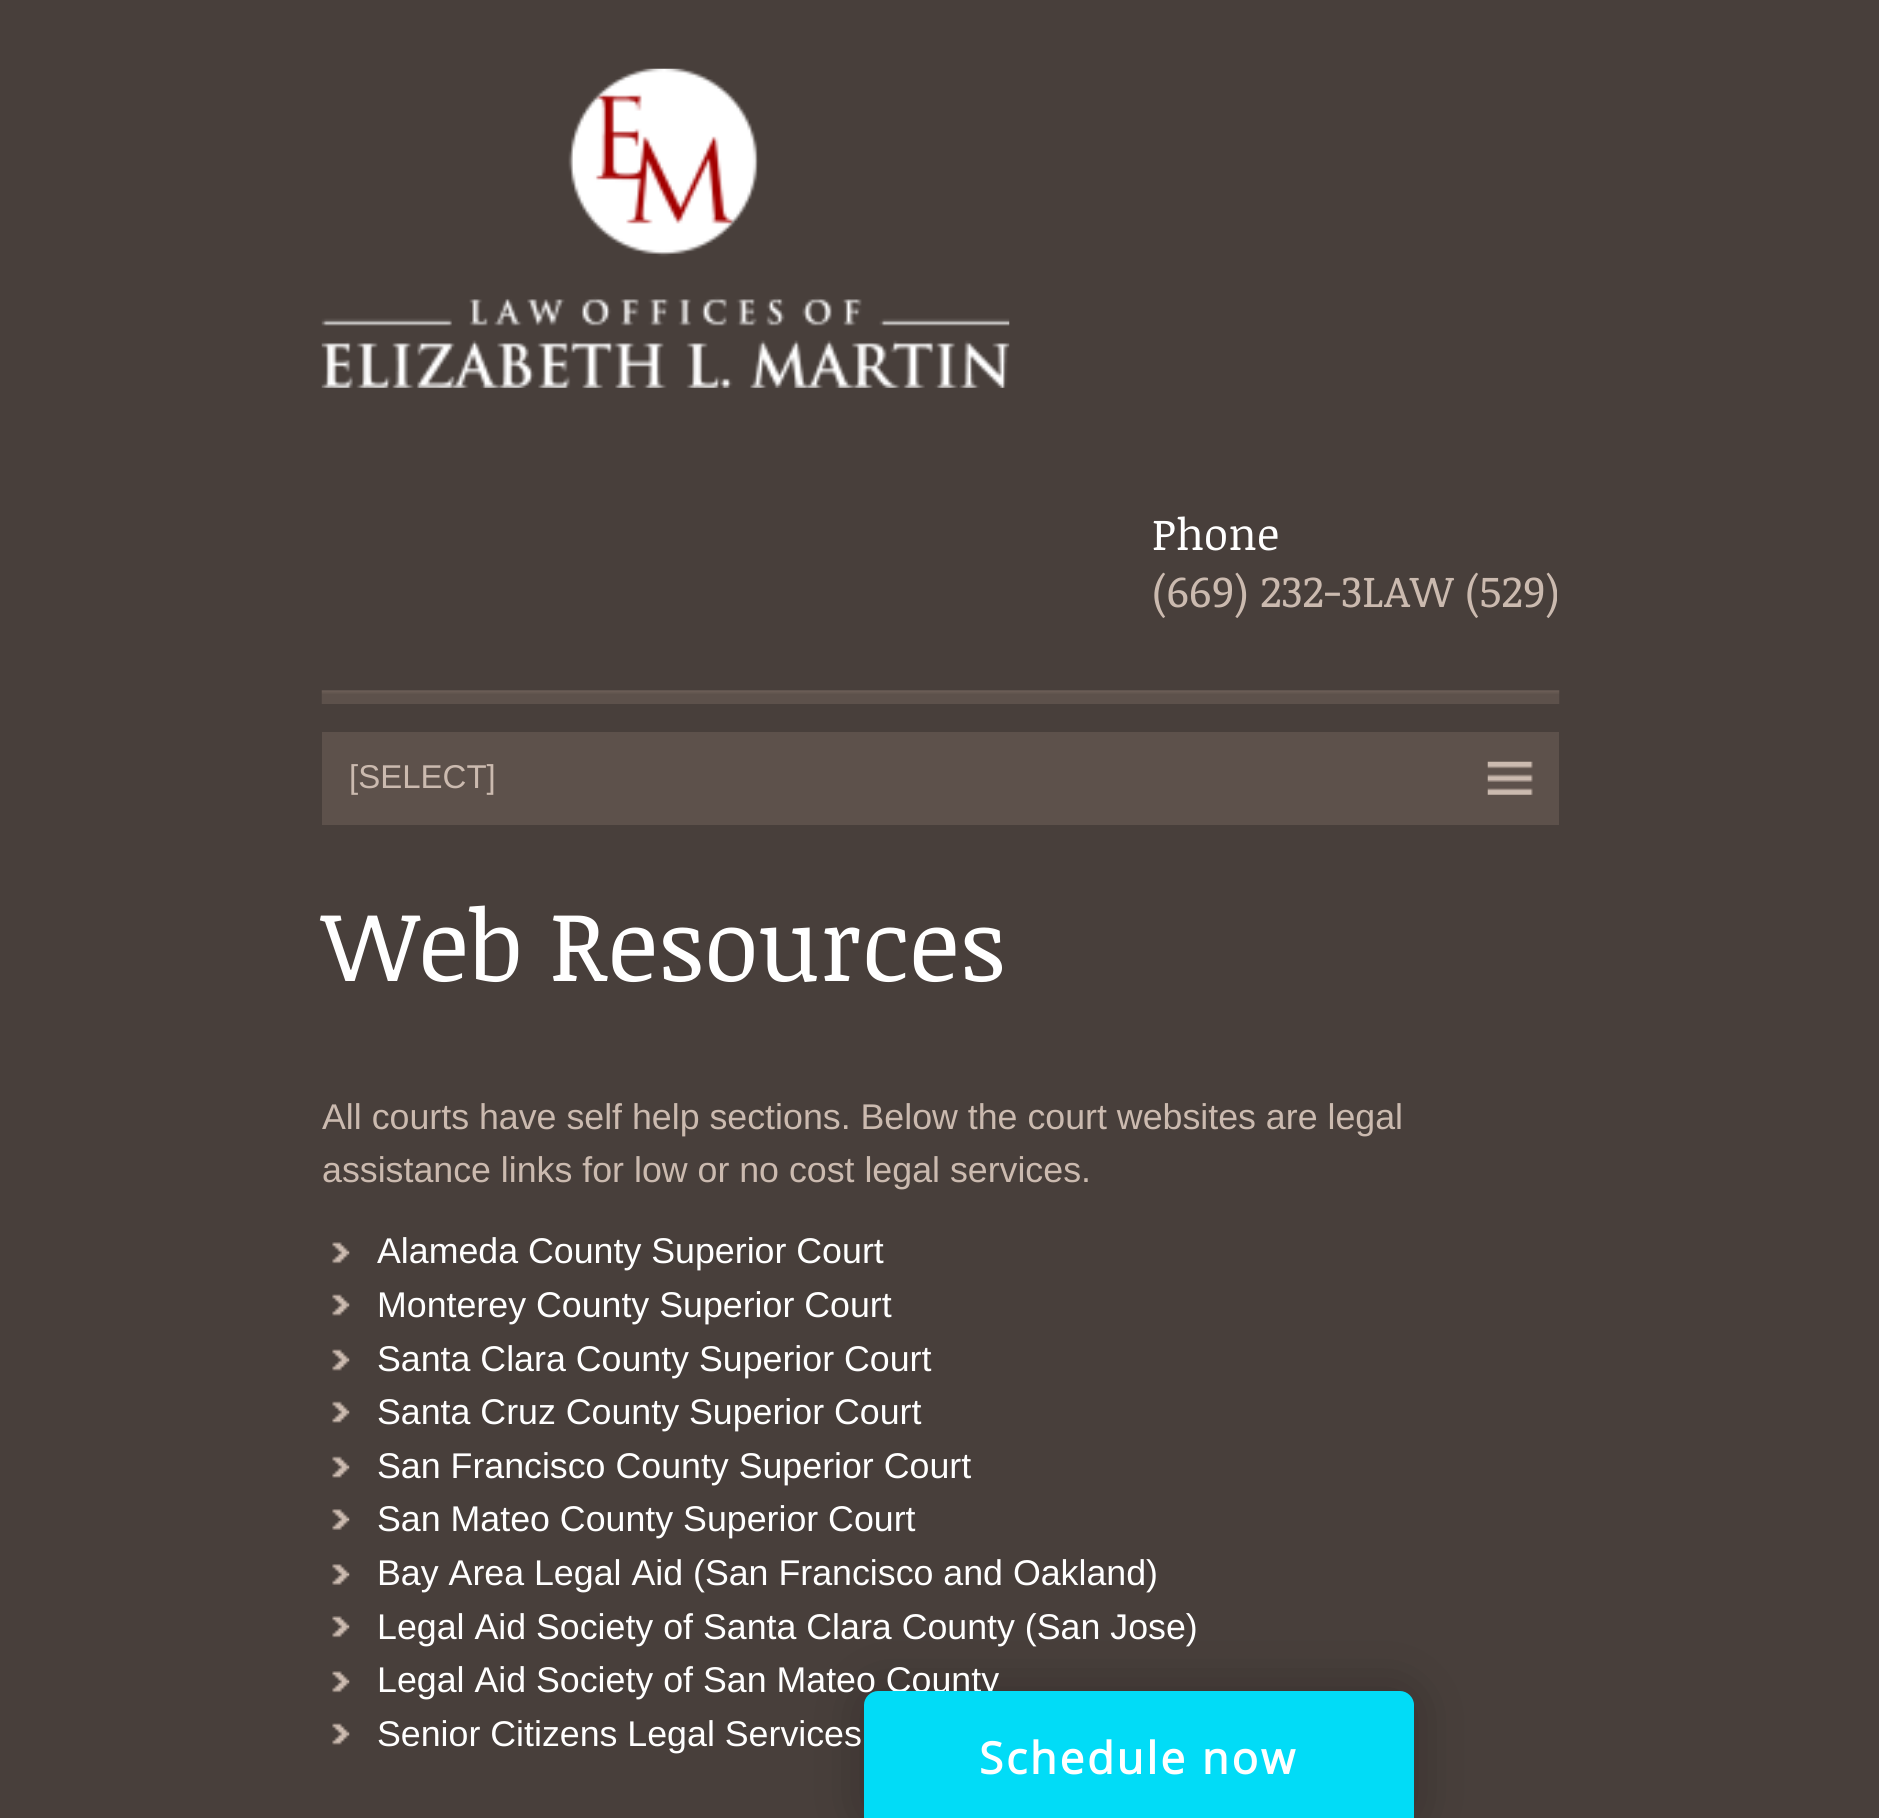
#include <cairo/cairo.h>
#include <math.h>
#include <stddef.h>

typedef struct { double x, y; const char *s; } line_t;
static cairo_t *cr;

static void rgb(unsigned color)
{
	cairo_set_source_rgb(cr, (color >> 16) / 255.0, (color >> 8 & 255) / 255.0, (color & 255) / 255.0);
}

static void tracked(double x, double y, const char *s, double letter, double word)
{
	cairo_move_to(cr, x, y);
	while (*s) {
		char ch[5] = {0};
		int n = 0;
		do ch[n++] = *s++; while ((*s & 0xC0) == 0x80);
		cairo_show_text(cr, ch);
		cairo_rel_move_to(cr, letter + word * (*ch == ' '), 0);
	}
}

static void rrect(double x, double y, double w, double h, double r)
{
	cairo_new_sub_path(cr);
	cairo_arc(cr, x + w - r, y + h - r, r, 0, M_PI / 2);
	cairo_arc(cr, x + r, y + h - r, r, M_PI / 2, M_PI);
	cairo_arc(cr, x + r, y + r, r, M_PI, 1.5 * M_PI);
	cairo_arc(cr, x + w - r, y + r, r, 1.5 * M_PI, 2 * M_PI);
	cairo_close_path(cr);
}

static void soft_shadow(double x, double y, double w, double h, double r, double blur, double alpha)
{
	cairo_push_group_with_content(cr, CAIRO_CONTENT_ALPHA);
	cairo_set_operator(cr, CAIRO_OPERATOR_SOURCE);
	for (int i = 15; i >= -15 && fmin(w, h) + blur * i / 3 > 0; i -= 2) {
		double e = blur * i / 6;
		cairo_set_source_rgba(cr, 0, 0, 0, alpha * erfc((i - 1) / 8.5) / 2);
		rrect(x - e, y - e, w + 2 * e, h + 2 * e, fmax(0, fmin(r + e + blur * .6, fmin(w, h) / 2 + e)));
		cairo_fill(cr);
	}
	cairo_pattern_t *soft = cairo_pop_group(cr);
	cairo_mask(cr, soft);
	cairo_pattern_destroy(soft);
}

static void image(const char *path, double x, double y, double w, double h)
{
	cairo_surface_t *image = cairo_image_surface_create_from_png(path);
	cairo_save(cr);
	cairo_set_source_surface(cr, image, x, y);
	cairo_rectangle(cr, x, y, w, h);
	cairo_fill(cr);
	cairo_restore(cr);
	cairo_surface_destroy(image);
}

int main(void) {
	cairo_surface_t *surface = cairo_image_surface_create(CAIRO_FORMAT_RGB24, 1879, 1818);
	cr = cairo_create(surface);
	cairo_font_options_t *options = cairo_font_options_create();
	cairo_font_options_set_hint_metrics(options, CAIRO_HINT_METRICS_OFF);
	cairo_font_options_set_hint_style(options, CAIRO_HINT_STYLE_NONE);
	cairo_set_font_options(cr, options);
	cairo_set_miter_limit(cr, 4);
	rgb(0x483f3b);
	cairo_paint(cr);
	image("img/1.png", 321, 690, 1239, 14);
	image("img/2.png", 321, 68, 689, 320);
	rgb(0x5d514b);
	cairo_rectangle(cr, 322, 732, 1237, 93);
	cairo_fill(cr);
	image("img/3.png", 1487, 761, 46, 34);
	image("img/4.png", 332, 1242, 18, 22);
	image("img/5.png", 332, 1294, 18, 22);
	image("img/5.png", 332, 1349, 18, 22);
	image("img/6.png", 332, 1401, 18, 22);
	image("img/6.png", 332, 1456, 18, 22);
	image("img/7.png", 332, 1509, 18, 21);
	image("img/7.png", 332, 1564, 18, 21);
	image("img/4.png", 332, 1616, 18, 22);
	image("img/4.png", 332, 1671, 18, 22);
	image("img/5.png", 332, 1723, 18, 22);
	rgb(0x000000);
	soft_shadow(864, 1691, 550, 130, 14, 27.5, 0.25);
	cairo_select_font_face(cr, "Noticia Text", CAIRO_FONT_SLANT_NORMAL, CAIRO_FONT_WEIGHT_NORMAL);
	cairo_set_font_size(cr, 44);
	rgb(0xffffff);
	cairo_move_to(cr, 1152, 550);
	cairo_show_text(cr, "Phone");
	rgb(0xcbbaaf);
	cairo_move_to(cr, 1152, 607);
	cairo_show_text(cr, "(669) 232-3LAW (529)");
	cairo_select_font_face(cr, "Liberation Sans", CAIRO_FONT_SLANT_NORMAL, CAIRO_FONT_WEIGHT_NORMAL);
	cairo_set_font_size(cr, 33);
	cairo_move_to(cr, 349, 788);
	cairo_show_text(cr, "[SELECT]");
	cairo_select_font_face(cr, "Noticia Text", CAIRO_FONT_SLANT_NORMAL, CAIRO_FONT_WEIGHT_NORMAL);
	cairo_set_font_size(cr, 99);
	rgb(0xffffff);
	cairo_move_to(cr, 322, 981);
	cairo_show_text(cr, "Web Resources");
	cairo_select_font_face(cr, "Liberation Sans", CAIRO_FONT_SLANT_NORMAL, CAIRO_FONT_WEIGHT_NORMAL);
	cairo_set_font_size(cr, 35.75);
	rgb(0xcbbaaf);
	cairo_move_to(cr, 322, 1129);
	cairo_show_text(cr, "All courts have self help sections. Below the court websites are legal");
	cairo_move_to(cr, 322, 1182);
	cairo_show_text(cr, "assistance links for low or no cost legal services.");
	rgb(0xffffff);
	{
		static const line_t items[] = {
			{377, 1263, "Alameda County Superior Court"},
			{377, 1317, "Monterey County Superior Court"},
			{377, 1371, "Santa Clara County Superior Court"},
			{377, 1424, "Santa Cruz County Superior Court"},
			{377, 1478, "San Francisco County Superior Court"},
			{377, 1531, "San Mateo County Superior Court"},
			{377, 1585, "Bay Area Legal Aid (San Francisco and Oakland)"},
			{377, 1639, "Legal Aid Society of Santa Clara County (San Jose)"},
			{377, 1692, "Legal Aid Society of San Mateo County"},
			{377, 1746, "Senior Citizens Legal Services"},
		};
		for (size_t i = 0; i < sizeof items / sizeof *items; i++) {
			cairo_move_to(cr, items[i].x, items[i].y);
			cairo_show_text(cr, items[i].s);
		}
	}
	rgb(0x01dcf7);
	cairo_new_path(cr);
	cairo_move_to(cr, 878, 1691);
	cairo_line_to(cr, 1400, 1691);
	cairo_curve_to(cr, 1407.5, 1691, 1414, 1697.5, 1414, 1705);
	cairo_line_to(cr, 1414, 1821);
	cairo_line_to(cr, 864, 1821);
	cairo_line_to(cr, 864, 1705);
	cairo_curve_to(cr, 864, 1697.5, 870.5, 1691, 878, 1691);
	cairo_close_path(cr);
	cairo_fill(cr);
	cairo_select_font_face(cr, "Open Sans", CAIRO_FONT_SLANT_NORMAL, CAIRO_FONT_WEIGHT_BOLD);
	cairo_set_font_size(cr, 44);
	rgb(0xffffff);
	tracked(979, 1774, "Schedule now", 2.75, 0);
	cairo_surface_write_to_png(surface, "page.png");
	cairo_font_options_destroy(options);
	cairo_destroy(cr);
	cairo_surface_destroy(surface);
	return 0;
}
